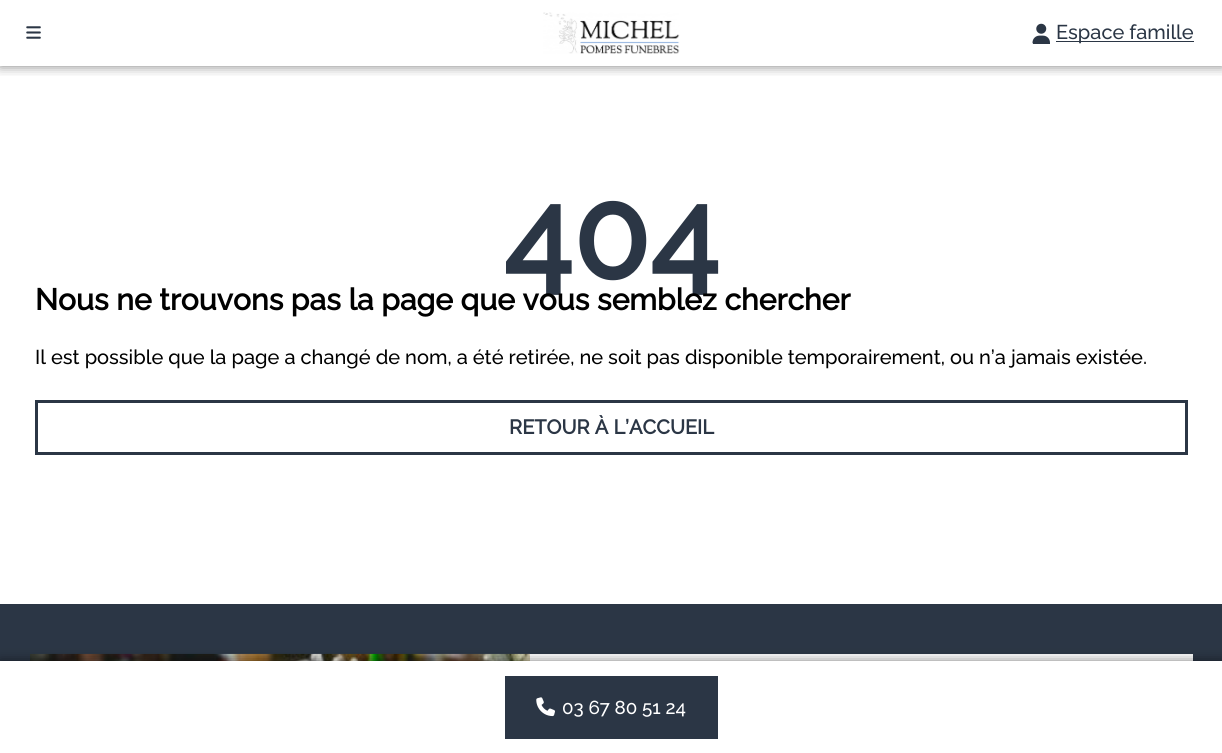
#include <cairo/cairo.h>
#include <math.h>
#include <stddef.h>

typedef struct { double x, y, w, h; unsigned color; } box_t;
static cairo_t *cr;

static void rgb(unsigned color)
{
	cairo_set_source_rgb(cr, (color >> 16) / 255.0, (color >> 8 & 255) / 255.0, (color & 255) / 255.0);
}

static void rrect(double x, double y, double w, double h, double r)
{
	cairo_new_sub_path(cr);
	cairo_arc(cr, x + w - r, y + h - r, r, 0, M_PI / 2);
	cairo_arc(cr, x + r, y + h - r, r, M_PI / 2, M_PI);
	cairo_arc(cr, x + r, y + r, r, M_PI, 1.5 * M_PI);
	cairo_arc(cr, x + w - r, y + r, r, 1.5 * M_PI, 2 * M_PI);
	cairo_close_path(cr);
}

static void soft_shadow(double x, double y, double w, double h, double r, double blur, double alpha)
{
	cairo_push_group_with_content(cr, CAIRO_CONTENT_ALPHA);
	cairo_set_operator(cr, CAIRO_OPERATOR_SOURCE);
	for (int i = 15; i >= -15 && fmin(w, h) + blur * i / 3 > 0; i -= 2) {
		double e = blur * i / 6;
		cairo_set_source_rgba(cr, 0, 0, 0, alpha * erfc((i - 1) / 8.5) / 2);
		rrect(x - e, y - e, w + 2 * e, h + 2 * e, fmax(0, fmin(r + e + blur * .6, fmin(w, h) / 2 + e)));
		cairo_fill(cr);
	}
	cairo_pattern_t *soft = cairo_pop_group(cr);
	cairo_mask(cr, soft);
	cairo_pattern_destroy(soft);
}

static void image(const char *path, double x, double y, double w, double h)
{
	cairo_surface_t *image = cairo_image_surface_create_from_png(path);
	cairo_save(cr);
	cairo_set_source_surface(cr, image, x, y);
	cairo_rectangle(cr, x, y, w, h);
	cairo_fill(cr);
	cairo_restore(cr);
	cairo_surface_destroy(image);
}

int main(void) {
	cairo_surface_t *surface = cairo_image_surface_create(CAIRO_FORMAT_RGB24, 1222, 753);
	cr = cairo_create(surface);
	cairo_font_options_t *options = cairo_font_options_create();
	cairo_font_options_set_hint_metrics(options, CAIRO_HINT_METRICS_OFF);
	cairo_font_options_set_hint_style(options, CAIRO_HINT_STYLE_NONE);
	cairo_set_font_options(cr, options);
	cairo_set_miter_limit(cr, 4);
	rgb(0xffffff);
	cairo_paint(cr);
	cairo_save(cr);
	cairo_rectangle(cr, 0, 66, 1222, 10);
	cairo_clip(cr);
	rgb(0x000000);
	soft_shadow(0, 0, 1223, 66, 0, 6, 0.5);
	cairo_restore(cr);
	image("img/1.png", 26, 26, 15, 13);
	image("img/2.png", 543, 12, 137, 42);
	rgb(0x2b3645);
	cairo_rectangle(cr, 1033, 43, 17, 1);
	cairo_fill(cr);
	image("img/3.png", 1032, 23, 18, 21);
	{
		static const box_t items[] = {
			{1056, 41, 138, 1, 0x2b3645},
			{0, 604, 1222, 57, 0x2b3645},
			{530, 654, 663, 7, 0xffffff},
		};
		for (size_t i = 0; i < sizeof items / sizeof *items; i++) {
			rgb(items[i].color);
			cairo_rectangle(cr, items[i].x, items[i].y, items[i].w, items[i].h);
			cairo_fill(cr);
		}
	}
	image("img/5.png", 30, 653, 500, 8);
	rgb(0x000000);
	soft_shadow(0, 661, 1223, 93, 0, 6, 0.5);
	rgb(0xffffff);
	cairo_rectangle(cr, 0, 661, 1222, 92);
	cairo_fill(cr);
	rgb(0x2b3645);
	cairo_rectangle(cr, 505, 676, 213, 63);
	cairo_fill(cr);
	image("img/4.png", 536, 697, 19, 20);
	cairo_rectangle(cr, 36.5, 401.5, 1150, 52);
	cairo_set_line_width(cr, 3);
	cairo_stroke(cr);
	cairo_select_font_face(cr, "Raleway Thin", CAIRO_FONT_SLANT_NORMAL, CAIRO_FONT_WEIGHT_NORMAL);
	cairo_set_font_size(cr, 20);
	cairo_move_to(cr, 1056, 39);
	cairo_show_text(cr, "Espace famille");
	cairo_set_font_size(cr, 18.75);
	rgb(0xffffff);
	cairo_move_to(cr, 562, 714);
	cairo_show_text(cr, "03 67 80 51 24");
	cairo_select_font_face(cr, "Raleway", CAIRO_FONT_SLANT_NORMAL, CAIRO_FONT_WEIGHT_BOLD);
	cairo_set_font_size(cr, 125);
	rgb(0x2b3645);
	cairo_move_to(cr, 503, 279);
	cairo_show_text(cr, "404");
	cairo_set_font_size(cr, 30);
	rgb(0x000000);
	cairo_move_to(cr, 35, 310);
	cairo_show_text(cr, "Nous ne trouvons pas la page que vous semblez chercher");
	cairo_select_font_face(cr, "Raleway Thin", CAIRO_FONT_SLANT_NORMAL, CAIRO_FONT_WEIGHT_NORMAL);
	cairo_set_font_size(cr, 20);
	cairo_move_to(cr, 35, 364);
	cairo_show_text(cr, "Il est possible que la page a changé de nom, a été retirée, ne soit pas disponible temporairement, ou n’a jamais existée.");
	cairo_select_font_face(cr, "Raleway", CAIRO_FONT_SLANT_NORMAL, CAIRO_FONT_WEIGHT_BOLD);
	rgb(0x2b3645);
	cairo_move_to(cr, 509, 434);
	cairo_show_text(cr, "RETOUR À L’ACCUEIL");
	cairo_surface_write_to_png(surface, "page.png");
	cairo_font_options_destroy(options);
	cairo_destroy(cr);
	cairo_surface_destroy(surface);
	return 0;
}
